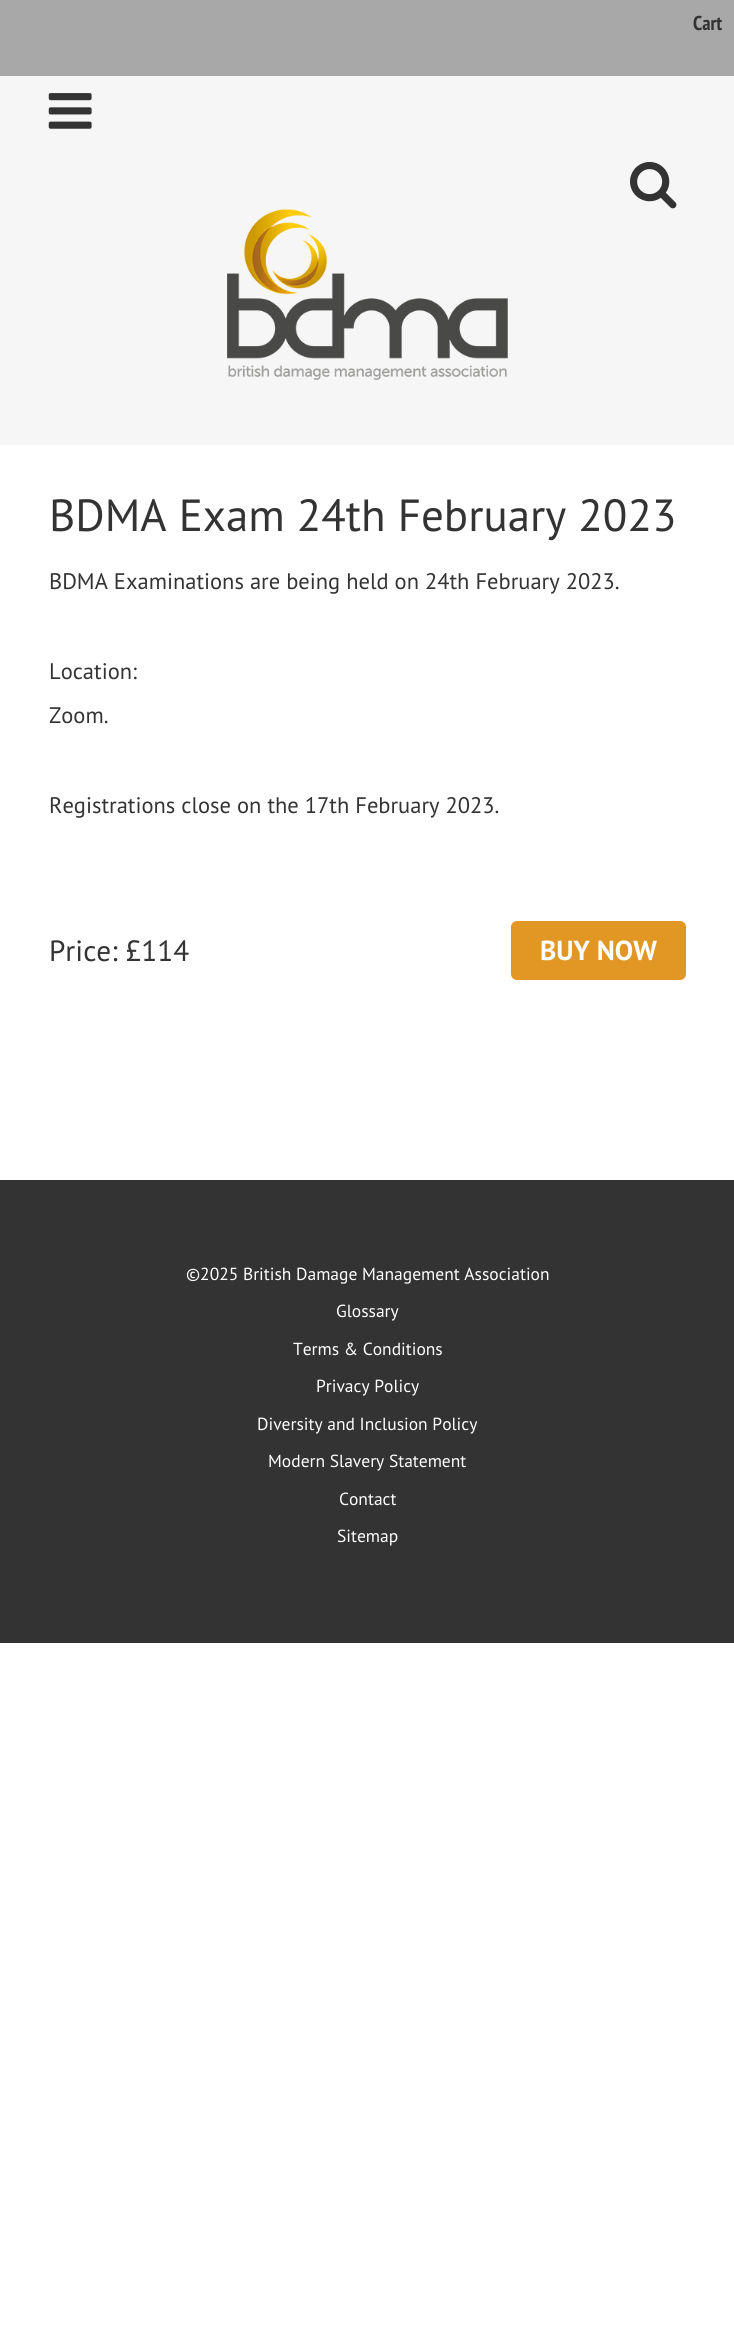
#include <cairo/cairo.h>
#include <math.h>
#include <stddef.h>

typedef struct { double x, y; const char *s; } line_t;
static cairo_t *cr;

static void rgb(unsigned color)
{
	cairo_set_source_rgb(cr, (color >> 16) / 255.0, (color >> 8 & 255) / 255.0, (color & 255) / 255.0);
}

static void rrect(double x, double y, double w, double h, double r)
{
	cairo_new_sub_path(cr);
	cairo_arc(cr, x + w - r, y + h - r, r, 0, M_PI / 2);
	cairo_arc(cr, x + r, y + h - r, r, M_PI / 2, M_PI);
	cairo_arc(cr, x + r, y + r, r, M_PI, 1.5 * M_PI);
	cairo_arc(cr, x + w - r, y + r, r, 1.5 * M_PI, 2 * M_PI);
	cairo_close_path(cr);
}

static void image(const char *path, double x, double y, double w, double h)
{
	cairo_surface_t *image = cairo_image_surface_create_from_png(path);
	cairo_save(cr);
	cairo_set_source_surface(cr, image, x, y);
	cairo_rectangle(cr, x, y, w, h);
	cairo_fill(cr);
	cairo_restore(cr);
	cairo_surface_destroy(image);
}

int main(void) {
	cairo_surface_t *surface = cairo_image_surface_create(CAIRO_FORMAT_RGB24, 734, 2325);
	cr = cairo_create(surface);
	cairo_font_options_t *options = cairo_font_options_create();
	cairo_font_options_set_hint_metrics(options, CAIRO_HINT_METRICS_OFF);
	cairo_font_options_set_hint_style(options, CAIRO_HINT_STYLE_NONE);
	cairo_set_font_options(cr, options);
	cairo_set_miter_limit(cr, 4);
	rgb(0xffffff);
	cairo_paint(cr);
	rgb(0xf6f6f6);
	cairo_rectangle(cr, 0, 76, 734, 369);
	cairo_fill(cr);
	rgb(0xa8a8a8);
	cairo_rectangle(cr, 0, 0, 734, 76);
	cairo_fill(cr);
	image("img/1.png", 48, 93, 44, 36);
	image("img/2.png", 630, 162, 47, 47);
	image("img/3.png", 227, 209, 281, 171);
	rgb(0xe29725);
	rrect(511, 921, 175, 59, 6);
	cairo_fill(cr);
	rgb(0x333333);
	cairo_rectangle(cr, 0, 1180, 734, 463);
	cairo_fill(cr);
	cairo_select_font_face(cr, "PT Sans Narrow", CAIRO_FONT_SLANT_NORMAL, CAIRO_FONT_WEIGHT_BOLD);
	cairo_set_font_size(cr, 20);
	cairo_move_to(cr, 693, 30);
	cairo_show_text(cr, "Cart");
	cairo_select_font_face(cr, "PT Sans", CAIRO_FONT_SLANT_NORMAL, CAIRO_FONT_WEIGHT_NORMAL);
	cairo_set_font_size(cr, 45);
	cairo_move_to(cr, 49, 531);
	cairo_show_text(cr, "BDMA Exam 24th February 2023");
	cairo_set_font_size(cr, 22.5);
	{
		static const line_t items[] = {
			{49, 589, "BDMA Examinations are being held on 24th February 2023."},
			{49, 679, "Location:"},
			{49, 723, "Zoom."},
			{49, 813, "Registrations close on the 17th February 2023."},
		};
		for (size_t i = 0; i < sizeof items / sizeof *items; i++) {
			cairo_move_to(cr, items[i].x, items[i].y);
			cairo_show_text(cr, items[i].s);
		}
	}
	cairo_set_font_size(cr, 29.25);
	cairo_move_to(cr, 49, 961);
	cairo_show_text(cr, "Price: £114");
	cairo_select_font_face(cr, "PT Sans", CAIRO_FONT_SLANT_NORMAL, CAIRO_FONT_WEIGHT_BOLD);
	cairo_set_font_size(cr, 27.5);
	rgb(0xffffff);
	cairo_move_to(cr, 540, 960);
	cairo_show_text(cr, "BUY NOW");
	cairo_select_font_face(cr, "PT Sans", CAIRO_FONT_SLANT_NORMAL, CAIRO_FONT_WEIGHT_NORMAL);
	cairo_set_font_size(cr, 17.5);
	{
		static const line_t items[] = {
			{186, 1280, "©2025 British Damage Management Association"},
			{336, 1317, "Glossary"},
			{293, 1355, "Terms & Conditions"},
			{316, 1392, "Privacy Policy"},
			{257, 1430, "Diversity and Inclusion Policy"},
			{268, 1467, "Modern Slavery Statement"},
			{339, 1505, "Contact"},
			{337, 1542, "Sitemap"},
		};
		for (size_t i = 0; i < sizeof items / sizeof *items; i++) {
			cairo_move_to(cr, items[i].x, items[i].y);
			cairo_show_text(cr, items[i].s);
		}
	}
	cairo_surface_write_to_png(surface, "page.png");
	cairo_font_options_destroy(options);
	cairo_destroy(cr);
	cairo_surface_destroy(surface);
	return 0;
}
